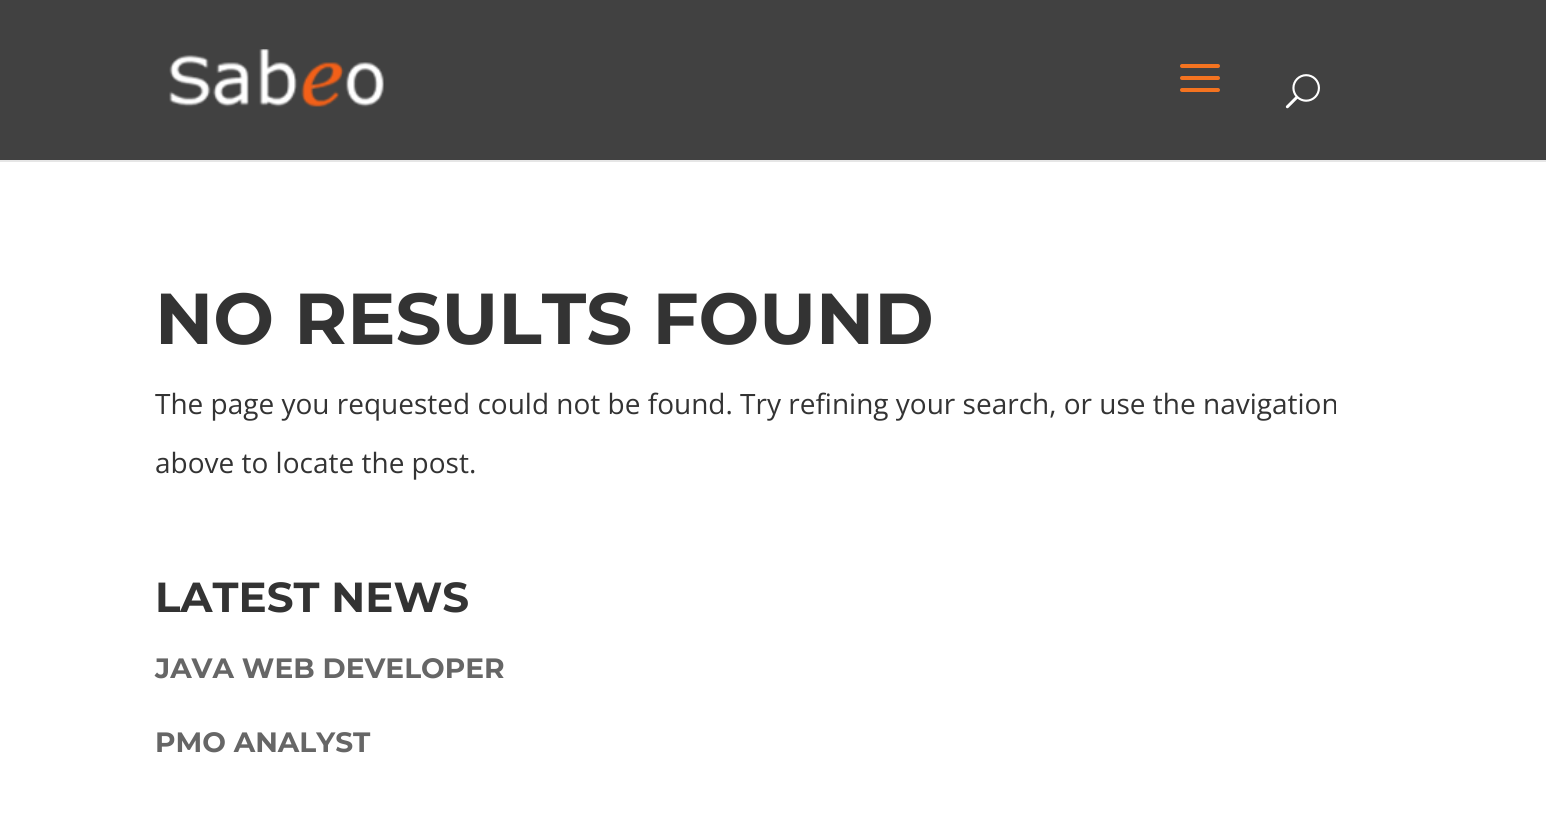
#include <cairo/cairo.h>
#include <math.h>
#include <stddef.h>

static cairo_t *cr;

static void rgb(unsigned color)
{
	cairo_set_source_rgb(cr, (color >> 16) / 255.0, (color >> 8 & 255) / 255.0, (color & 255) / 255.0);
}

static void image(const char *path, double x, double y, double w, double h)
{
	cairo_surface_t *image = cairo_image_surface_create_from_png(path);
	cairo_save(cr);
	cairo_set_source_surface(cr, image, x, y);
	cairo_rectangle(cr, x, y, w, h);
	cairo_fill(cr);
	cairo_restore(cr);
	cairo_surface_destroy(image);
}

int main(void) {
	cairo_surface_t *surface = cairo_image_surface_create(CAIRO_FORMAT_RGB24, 1546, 836);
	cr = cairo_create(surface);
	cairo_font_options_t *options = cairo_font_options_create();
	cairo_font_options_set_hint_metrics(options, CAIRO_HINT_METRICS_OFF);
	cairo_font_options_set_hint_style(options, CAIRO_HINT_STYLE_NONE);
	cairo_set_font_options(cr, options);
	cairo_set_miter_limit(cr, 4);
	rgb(0xffffff);
	cairo_paint(cr);
	rgb(0xe6e6e6);
	cairo_rectangle(cr, 0, 160, 1546, 2);
	cairo_fill(cr);
	rgb(0x414141);
	cairo_rectangle(cr, 0, 0, 1546, 160);
	cairo_fill(cr);
	image("img/1.png", 169, 49, 215, 58);
	image("img/2.png", 1180, 64, 40, 28);
	image("img/3.png", 1285, 74, 35, 35);
	cairo_select_font_face(cr, "Montserrat", CAIRO_FONT_SLANT_NORMAL, CAIRO_FONT_WEIGHT_BOLD);
	cairo_set_font_size(cr, 72);
	rgb(0x333333);
	cairo_move_to(cr, 155, 344);
	cairo_show_text(cr, "NO RESULTS FOUND");
	cairo_select_font_face(cr, "Open Sans", CAIRO_FONT_SLANT_NORMAL, CAIRO_FONT_WEIGHT_NORMAL);
	cairo_set_font_size(cr, 28);
	cairo_move_to(cr, 155, 414);
	cairo_show_text(cr, "The page you requested could not be found. Try refining your search, or use the navigation");
	cairo_move_to(cr, 155, 473);
	cairo_show_text(cr, "above to locate the post.");
	cairo_select_font_face(cr, "Montserrat", CAIRO_FONT_SLANT_NORMAL, CAIRO_FONT_WEIGHT_BOLD);
	cairo_set_font_size(cr, 42);
	cairo_move_to(cr, 155, 612);
	cairo_show_text(cr, "LATEST NEWS");
	cairo_set_font_size(cr, 28);
	rgb(0x666666);
	cairo_move_to(cr, 155, 678);
	cairo_show_text(cr, "JAVA WEB DEVELOPER");
	cairo_move_to(cr, 155, 752);
	cairo_show_text(cr, "PMO ANALYST");
	cairo_surface_write_to_png(surface, "page.png");
	cairo_font_options_destroy(options);
	cairo_destroy(cr);
	cairo_surface_destroy(surface);
	return 0;
}
